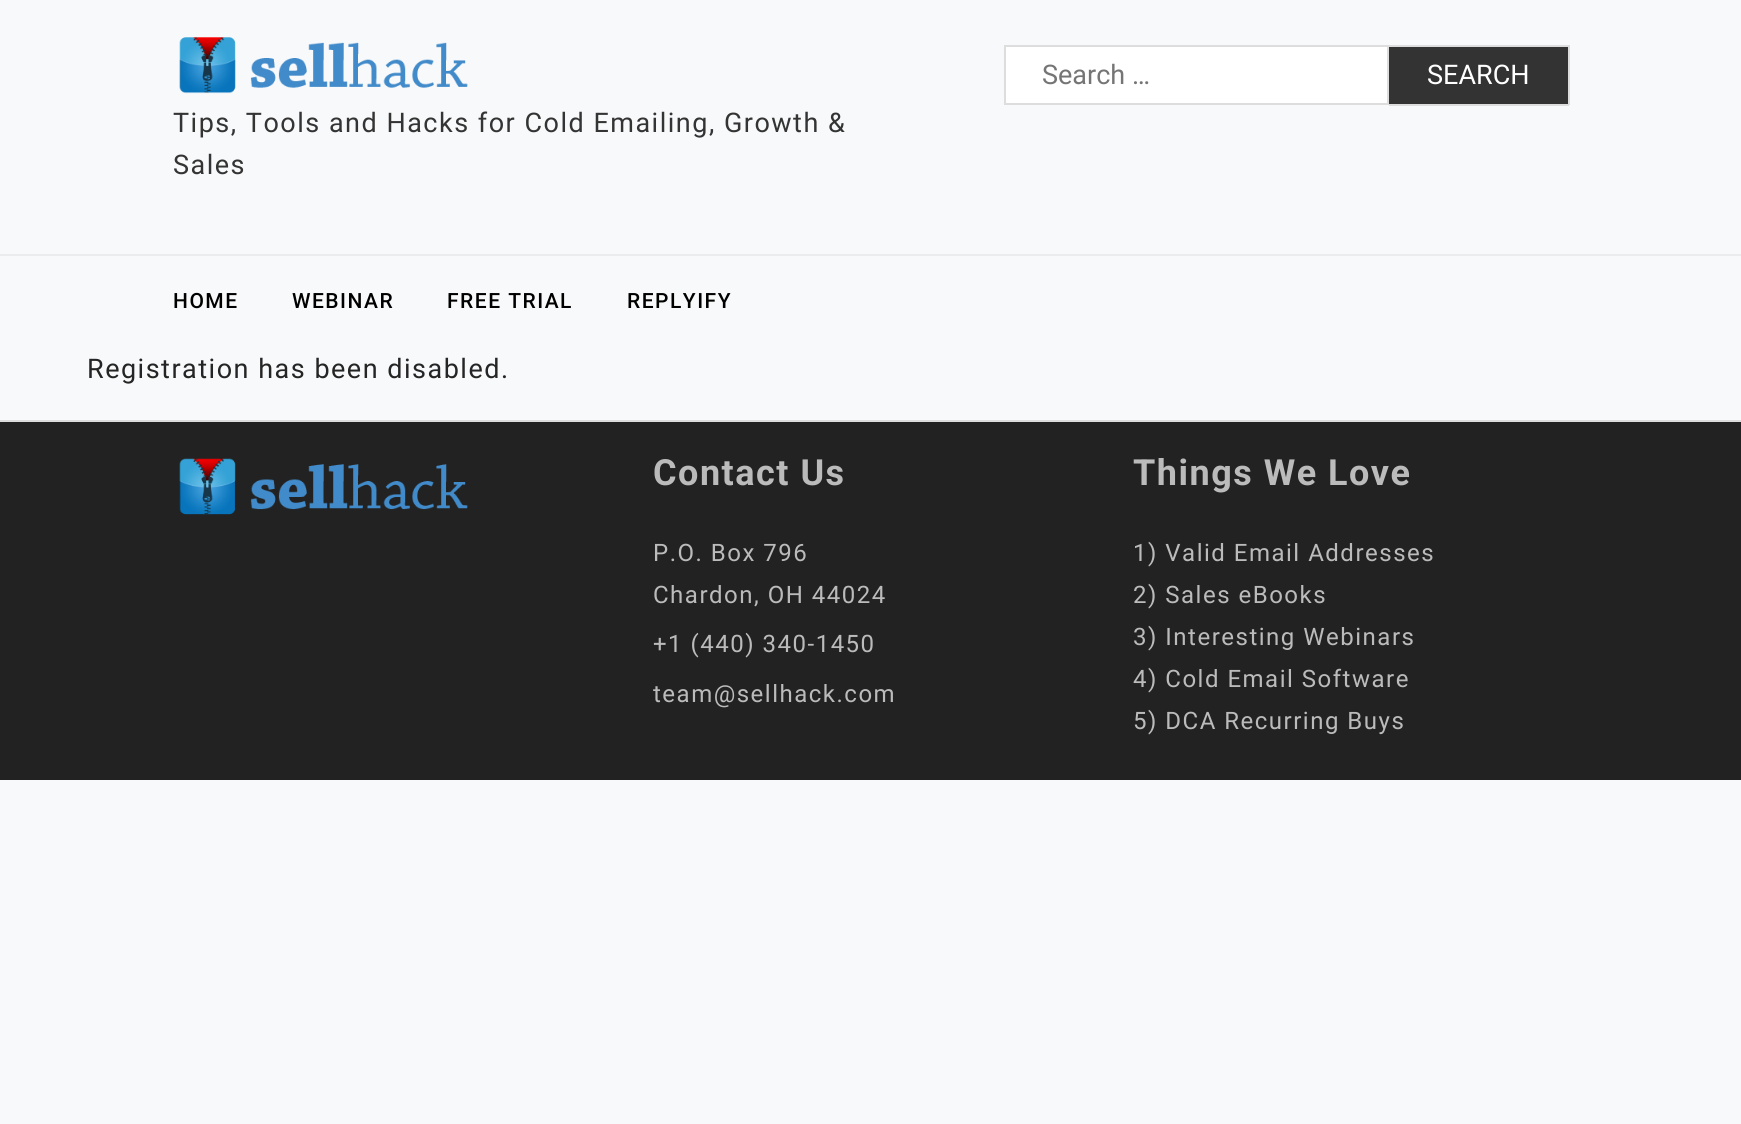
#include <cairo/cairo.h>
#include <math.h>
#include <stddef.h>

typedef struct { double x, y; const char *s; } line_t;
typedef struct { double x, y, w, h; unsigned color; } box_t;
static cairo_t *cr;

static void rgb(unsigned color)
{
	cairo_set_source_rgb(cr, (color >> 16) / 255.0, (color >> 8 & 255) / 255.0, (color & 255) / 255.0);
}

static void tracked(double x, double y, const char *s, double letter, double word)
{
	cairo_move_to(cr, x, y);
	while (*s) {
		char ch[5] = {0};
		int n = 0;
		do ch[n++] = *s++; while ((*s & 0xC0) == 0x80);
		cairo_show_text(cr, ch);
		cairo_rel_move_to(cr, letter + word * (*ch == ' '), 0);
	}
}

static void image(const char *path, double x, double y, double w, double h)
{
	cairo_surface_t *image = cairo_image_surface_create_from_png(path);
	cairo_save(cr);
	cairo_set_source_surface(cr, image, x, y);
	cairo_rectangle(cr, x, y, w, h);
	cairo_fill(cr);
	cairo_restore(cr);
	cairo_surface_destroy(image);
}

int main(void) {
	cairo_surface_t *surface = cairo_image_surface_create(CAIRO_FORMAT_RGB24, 1741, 1124);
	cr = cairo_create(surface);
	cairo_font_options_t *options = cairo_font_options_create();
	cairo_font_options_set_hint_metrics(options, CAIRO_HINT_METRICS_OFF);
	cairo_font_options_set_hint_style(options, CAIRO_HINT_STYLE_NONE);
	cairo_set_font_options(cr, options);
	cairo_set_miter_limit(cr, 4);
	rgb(0xf8f9fa);
	cairo_paint(cr);
	rgb(0xeaecee);
	cairo_rectangle(cr, 0, 254, 1741, 2);
	cairo_fill(cr);
	rgb(0xffffff);
	cairo_rectangle(cr, 1005, 46, 383, 58);
	cairo_fill_preserve(cr);
	rgb(0xdddddd);
	cairo_stroke(cr);
	{
		static const box_t items[] = {
			{1389, 47, 179, 57, 0x333333},
			{1389, 45, 180, 2, 0xdddddd},
			{1568, 45, 2, 60, 0xdddddd},
			{1389, 104, 180, 2, 0xdddddd},
		};
		for (size_t i = 0; i < sizeof items / sizeof *items; i++) {
			rgb(items[i].color);
			cairo_rectangle(cr, items[i].x, items[i].y, items[i].w, items[i].h);
			cairo_fill(cr);
		}
	}
	image("img/1.png", 179, 37, 289, 57);
	rgb(0x222222);
	cairo_rectangle(cr, 0, 422, 1741, 358);
	cairo_fill(cr);
	rgb(0xdddddd);
	cairo_rectangle(cr, 0, 420, 1741, 2);
	cairo_fill(cr);
	image("img/2.png", 179, 458, 289, 57);
	cairo_select_font_face(cr, "Roboto", CAIRO_FONT_SLANT_NORMAL, CAIRO_FONT_WEIGHT_NORMAL);
	cairo_set_font_size(cr, 27);
	rgb(0x757575);
	cairo_move_to(cr, 1042, 84);
	cairo_show_text(cr, "Search …");
	rgb(0xffffff);
	cairo_move_to(cr, 1427, 84);
	cairo_show_text(cr, "SEARCH");
	rgb(0x343434);
	tracked(173, 132, "Tips, Tools and Hacks for Cold Emailing, Growth &", 1.5, 0);
	tracked(173, 174, "Sales", 1.5, 0);
	cairo_select_font_face(cr, "Roboto Medium", CAIRO_FONT_SLANT_NORMAL, CAIRO_FONT_WEIGHT_NORMAL);
	cairo_set_font_size(cr, 21);
	rgb(0x000000);
	{
		static const line_t items[] = {
			{173, 308, "HOME"},
			{292, 308, "WEBINAR"},
			{447, 308, "FREE TRIAL"},
			{627, 308, "REPLYIFY"},
		};
		for (size_t i = 0; i < sizeof items / sizeof *items; i++) {
			tracked(items[i].x, items[i].y, items[i].s, 1.5, 0);
		}
	}
	cairo_select_font_face(cr, "Roboto", CAIRO_FONT_SLANT_NORMAL, CAIRO_FONT_WEIGHT_NORMAL);
	cairo_set_font_size(cr, 27);
	rgb(0x252525);
	tracked(87, 378, "Registration has been disabled.", 1.5, 0);
	cairo_select_font_face(cr, "Roboto", CAIRO_FONT_SLANT_NORMAL, CAIRO_FONT_WEIGHT_BOLD);
	cairo_set_font_size(cr, 36);
	rgb(0xbbbbbb);
	tracked(653, 485, "Contact Us", 1.5, 0);
	cairo_select_font_face(cr, "Roboto", CAIRO_FONT_SLANT_NORMAL, CAIRO_FONT_WEIGHT_NORMAL);
	cairo_set_font_size(cr, 24);
	{
		static const line_t items[] = {
			{653, 561, "P.O. Box 796"},
			{653, 603, "Chardon, OH 44024"},
			{653, 652, "+1 (440) 340-1450"},
			{653, 702, "team@sellhack.com"},
		};
		for (size_t i = 0; i < sizeof items / sizeof *items; i++) {
			tracked(items[i].x, items[i].y, items[i].s, 1.5, 0);
		}
	}
	cairo_select_font_face(cr, "Roboto", CAIRO_FONT_SLANT_NORMAL, CAIRO_FONT_WEIGHT_BOLD);
	cairo_set_font_size(cr, 36);
	tracked(1133, 485, "Things We Love", 1.5, 0);
	cairo_select_font_face(cr, "Roboto", CAIRO_FONT_SLANT_NORMAL, CAIRO_FONT_WEIGHT_NORMAL);
	cairo_set_font_size(cr, 24);
	{
		static const line_t items[] = {
			{1133, 561, "1) Valid Email Addresses"},
			{1133, 603, "2) Sales eBooks"},
			{1133, 645, "3) Interesting Webinars"},
			{1133, 687, "4) Cold Email Software"},
			{1133, 729, "5) DCA Recurring Buys"},
		};
		for (size_t i = 0; i < sizeof items / sizeof *items; i++) {
			tracked(items[i].x, items[i].y, items[i].s, 1.5, 0);
		}
	}
	cairo_surface_write_to_png(surface, "page.png");
	cairo_font_options_destroy(options);
	cairo_destroy(cr);
	cairo_surface_destroy(surface);
	return 0;
}
